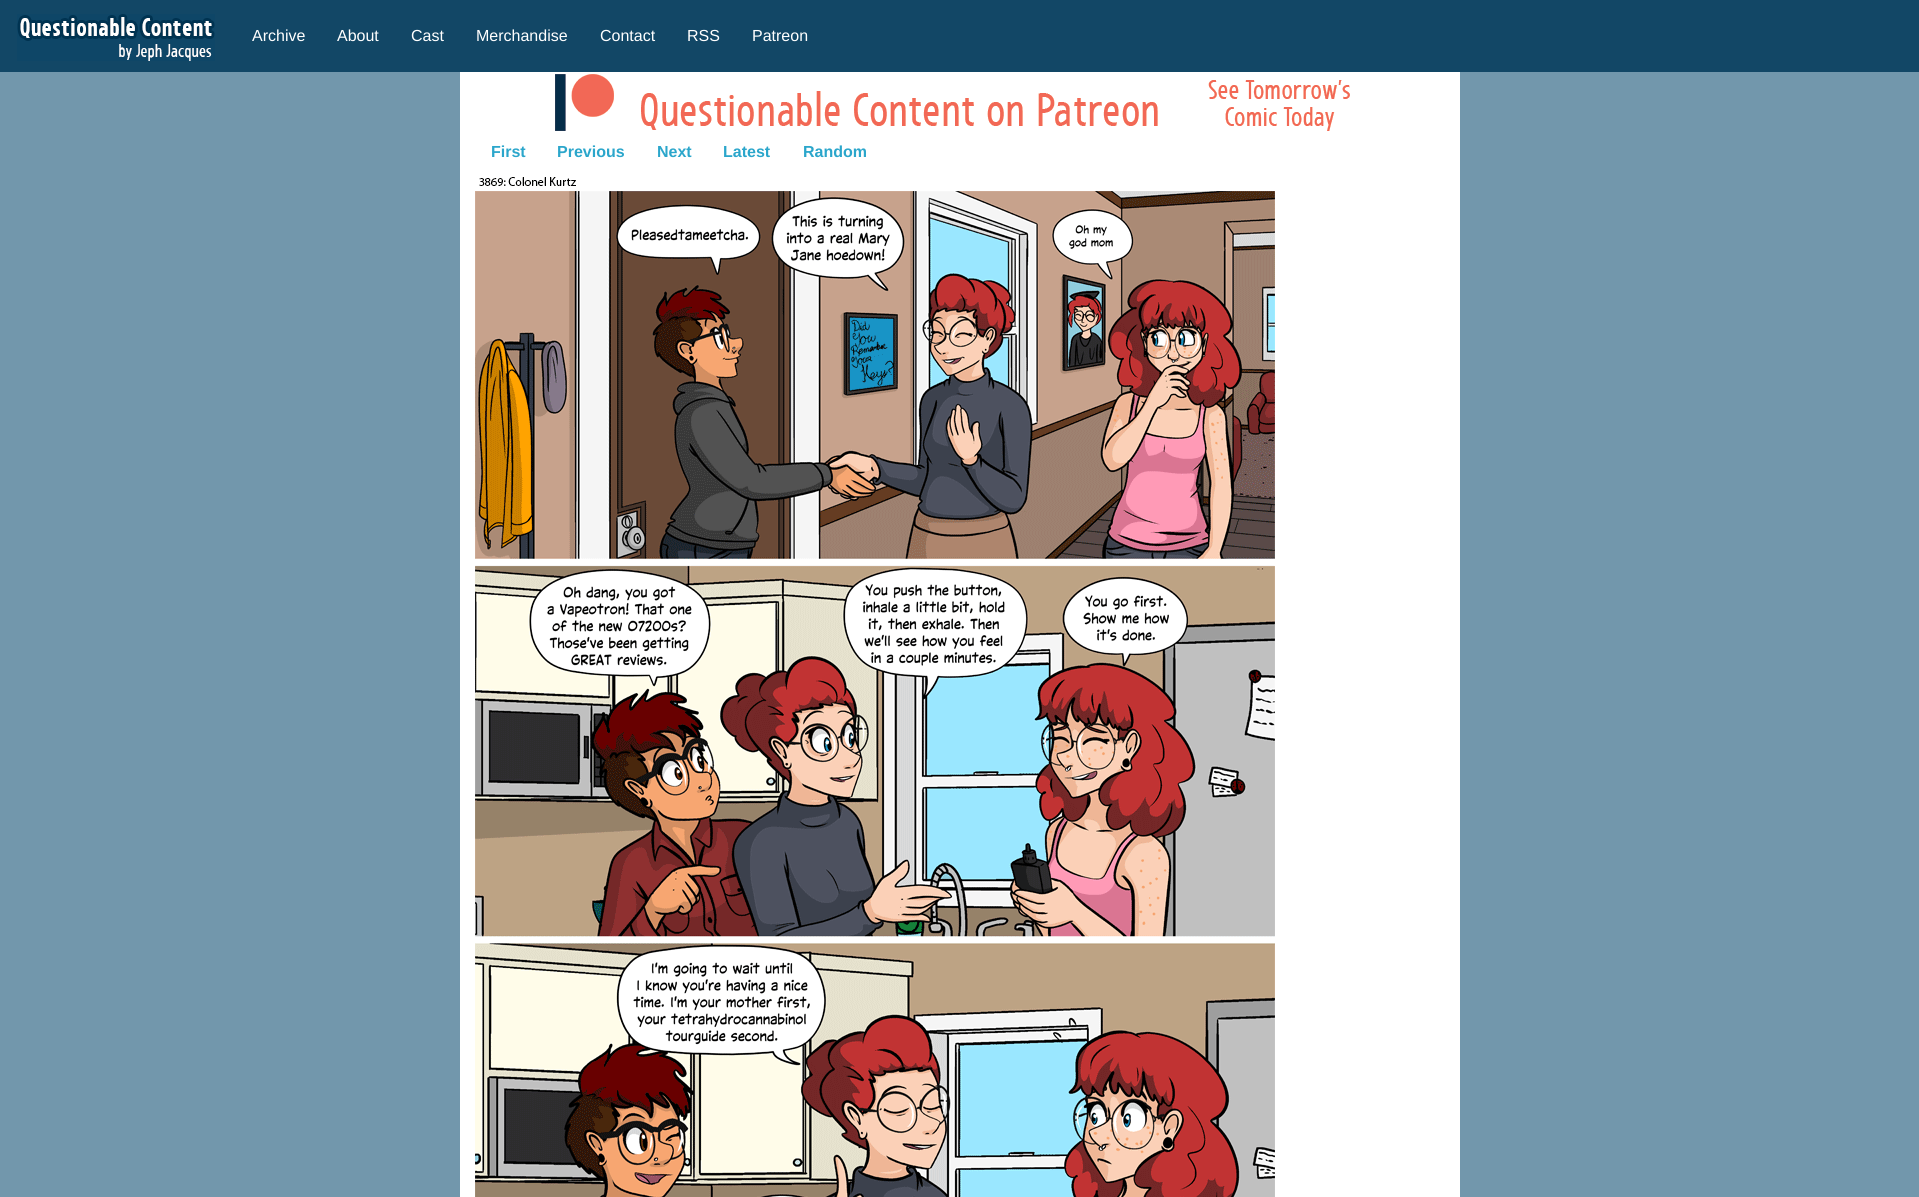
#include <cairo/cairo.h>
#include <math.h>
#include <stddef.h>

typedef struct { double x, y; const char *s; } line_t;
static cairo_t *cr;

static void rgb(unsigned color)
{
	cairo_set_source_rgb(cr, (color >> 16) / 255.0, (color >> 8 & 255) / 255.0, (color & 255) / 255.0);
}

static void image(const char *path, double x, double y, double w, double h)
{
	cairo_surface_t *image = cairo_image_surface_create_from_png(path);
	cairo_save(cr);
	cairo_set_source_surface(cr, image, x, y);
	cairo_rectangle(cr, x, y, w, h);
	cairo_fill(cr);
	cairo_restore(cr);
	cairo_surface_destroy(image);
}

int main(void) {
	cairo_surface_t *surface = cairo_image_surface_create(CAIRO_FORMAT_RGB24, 1919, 1197);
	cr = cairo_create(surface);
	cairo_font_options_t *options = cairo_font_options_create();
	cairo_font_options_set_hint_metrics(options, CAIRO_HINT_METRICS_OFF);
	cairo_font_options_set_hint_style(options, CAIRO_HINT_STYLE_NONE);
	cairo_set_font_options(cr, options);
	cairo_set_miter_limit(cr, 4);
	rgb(0x7297ac);
	cairo_paint(cr);
	rgb(0x124766);
	cairo_rectangle(cr, 0, 0, 1919, 72);
	cairo_fill(cr);
	image("img/1.png", 17, 14, 198, 47);
	rgb(0xffffff);
	cairo_rectangle(cr, 460, 72, 1000, 1125);
	cairo_fill(cr);
	image("img/2.png", 555, 74, 795, 57);
	image("img/3.png", 475, 177, 800, 1020);
	cairo_select_font_face(cr, "Liberation Sans", CAIRO_FONT_SLANT_NORMAL, CAIRO_FONT_WEIGHT_NORMAL);
	cairo_set_font_size(cr, 16);
	{
		static const line_t items[] = {
			{252, 41, "Archive"},
			{337, 41, "About"},
			{411, 41, "Cast"},
			{476, 41, "Merchandise"},
			{600, 41, "Contact"},
			{687, 41, "RSS"},
			{752, 41, "Patreon"},
		};
		for (size_t i = 0; i < sizeof items / sizeof *items; i++) {
			cairo_move_to(cr, items[i].x, items[i].y);
			cairo_show_text(cr, items[i].s);
		}
	}
	cairo_select_font_face(cr, "Liberation Sans", CAIRO_FONT_SLANT_NORMAL, CAIRO_FONT_WEIGHT_BOLD);
	rgb(0x2ba6cb);
	{
		static const line_t items[] = {
			{491, 157, "First"},
			{557, 157, "Previous"},
			{657, 157, "Next"},
			{723, 157, "Latest"},
			{803, 157, "Random"},
		};
		for (size_t i = 0; i < sizeof items / sizeof *items; i++) {
			cairo_move_to(cr, items[i].x, items[i].y);
			cairo_show_text(cr, items[i].s);
		}
	}
	cairo_surface_write_to_png(surface, "page.png");
	cairo_font_options_destroy(options);
	cairo_destroy(cr);
	cairo_surface_destroy(surface);
	return 0;
}
